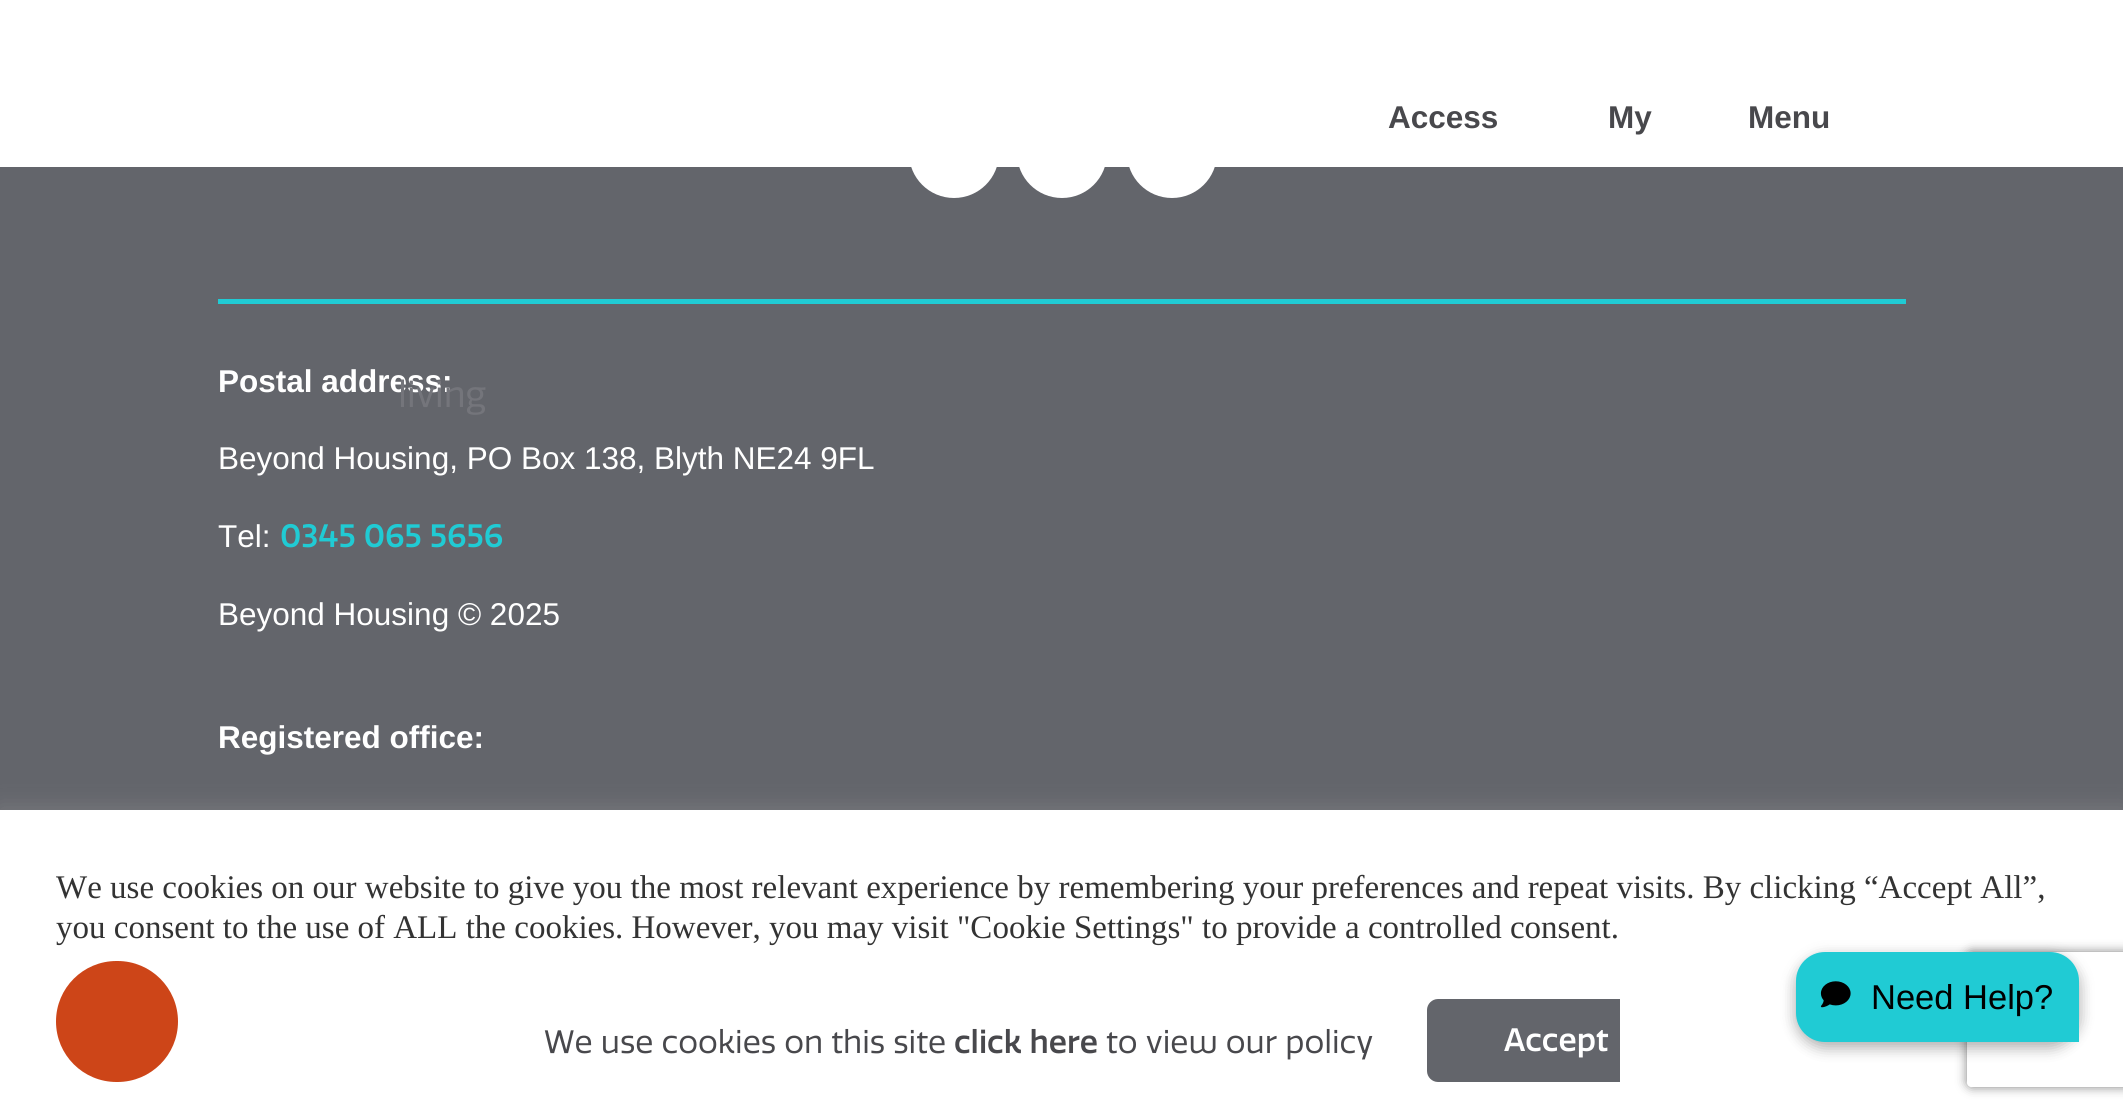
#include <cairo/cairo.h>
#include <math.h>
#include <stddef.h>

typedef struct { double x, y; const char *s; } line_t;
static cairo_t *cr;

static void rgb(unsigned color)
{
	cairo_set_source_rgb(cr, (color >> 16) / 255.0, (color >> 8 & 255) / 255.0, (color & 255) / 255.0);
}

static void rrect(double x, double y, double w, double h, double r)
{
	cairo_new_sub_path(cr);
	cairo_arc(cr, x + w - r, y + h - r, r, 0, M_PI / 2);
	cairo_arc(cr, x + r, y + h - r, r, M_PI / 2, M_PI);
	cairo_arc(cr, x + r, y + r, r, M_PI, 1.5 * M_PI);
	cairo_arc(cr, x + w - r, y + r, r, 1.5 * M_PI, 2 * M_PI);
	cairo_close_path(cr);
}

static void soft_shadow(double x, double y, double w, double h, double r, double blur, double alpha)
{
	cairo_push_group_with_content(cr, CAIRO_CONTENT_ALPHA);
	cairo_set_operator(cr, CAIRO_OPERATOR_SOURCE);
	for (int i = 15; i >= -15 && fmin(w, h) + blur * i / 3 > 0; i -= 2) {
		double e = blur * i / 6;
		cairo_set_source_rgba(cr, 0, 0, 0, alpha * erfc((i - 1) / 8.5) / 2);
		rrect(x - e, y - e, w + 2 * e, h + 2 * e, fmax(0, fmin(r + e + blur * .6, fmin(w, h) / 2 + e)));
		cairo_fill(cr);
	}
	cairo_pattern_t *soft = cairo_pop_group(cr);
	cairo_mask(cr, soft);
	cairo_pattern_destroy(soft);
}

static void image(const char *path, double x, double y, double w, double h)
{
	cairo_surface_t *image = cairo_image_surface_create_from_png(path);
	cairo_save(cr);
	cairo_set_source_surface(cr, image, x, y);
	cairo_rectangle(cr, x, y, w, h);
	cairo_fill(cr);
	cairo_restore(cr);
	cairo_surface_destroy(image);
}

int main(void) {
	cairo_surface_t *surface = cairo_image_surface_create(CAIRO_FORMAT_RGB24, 2123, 1118);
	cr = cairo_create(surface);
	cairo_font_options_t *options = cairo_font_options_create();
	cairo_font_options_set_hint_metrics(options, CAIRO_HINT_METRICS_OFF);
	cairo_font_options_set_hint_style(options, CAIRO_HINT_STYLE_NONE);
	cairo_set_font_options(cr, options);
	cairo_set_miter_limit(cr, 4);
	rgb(0x63656b);
	cairo_paint(cr);
	rgb(0xffffff);
	cairo_arc(cr, 954, 153, 45, 0, 2 * M_PI);
	cairo_fill(cr);
	cairo_arc(cr, 1062, 153, 45, 0, 2 * M_PI);
	cairo_fill(cr);
	cairo_arc(cr, 1172, 153, 45, 0, 2 * M_PI);
	cairo_fill(cr);
	cairo_rectangle(cr, 0, 0, 2123, 167);
	cairo_fill(cr);
	rgb(0x20cbd4);
	cairo_rectangle(cr, 218, 299, 1688, 5);
	cairo_fill(cr);
	rgb(0xacabab);
	soft_shadow(0, 808, 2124, 308, 0, 11, 0.3);
	rgb(0xffffff);
	cairo_rectangle(cr, 0, 810, 2123, 308);
	cairo_fill(cr);
	rgb(0xcd4518);
	rrect(56, 961, 122, 121, 60.5);
	cairo_fill(cr);
	cairo_save(cr);
	cairo_set_fill_rule(cr, CAIRO_FILL_RULE_EVEN_ODD);
	cairo_new_path(cr);
	cairo_move_to(cr, 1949, 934);
	cairo_line_to(cr, 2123, 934);
	cairo_line_to(cr, 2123, 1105);
	cairo_line_to(cr, 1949, 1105);
	cairo_close_path(cr);
	cairo_move_to(cr, 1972, 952);
	cairo_line_to(cr, 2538, 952);
	cairo_curve_to(cr, 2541, 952, 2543, 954, 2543, 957);
	cairo_line_to(cr, 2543, 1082);
	cairo_curve_to(cr, 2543, 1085, 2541, 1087, 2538, 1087);
	cairo_line_to(cr, 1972, 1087);
	cairo_curve_to(cr, 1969, 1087, 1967, 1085, 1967, 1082);
	cairo_line_to(cr, 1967, 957);
	cairo_curve_to(cr, 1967, 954, 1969, 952, 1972, 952);
	cairo_close_path(cr);
	cairo_clip(cr);
	rgb(0x808080);
	soft_shadow(1967, 952, 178, 135, 5, 5.5, 1);
	cairo_restore(cr);
	rgb(0x000000);
	soft_shadow(1796, 956, 283, 90, 29, 7.5, 0.24);
	soft_shadow(1796, 961, 283, 88, 29, 7.5, 0.13);
	rgb(0x20cbd4);
	cairo_new_path(cr);
	cairo_move_to(cr, 1825, 952);
	cairo_line_to(cr, 2050, 952);
	cairo_curve_to(cr, 2066, 952, 2079, 965, 2079, 981);
	cairo_line_to(cr, 2079, 1042);
	cairo_line_to(cr, 1825, 1042);
	cairo_curve_to(cr, 1809, 1042, 1796, 1029, 1796, 1013);
	cairo_line_to(cr, 1796, 981);
	cairo_curve_to(cr, 1796, 965, 1809, 952, 1825, 952);
	cairo_close_path(cr);
	cairo_fill(cr);
	image("img/1.png", 1820, 981, 31, 27);
	rgb(0x63656b);
	cairo_new_path(cr);
	cairo_move_to(cr, 1438, 999);
	cairo_line_to(cr, 1620, 999);
	cairo_line_to(cr, 1620, 1082);
	cairo_line_to(cr, 1438, 1082);
	cairo_curve_to(cr, 1432, 1082, 1427, 1077, 1427, 1071);
	cairo_line_to(cr, 1427, 1010);
	cairo_curve_to(cr, 1427, 1004, 1432, 999, 1438, 999);
	cairo_close_path(cr);
	cairo_fill(cr);
	cairo_select_font_face(cr, "Liberation Sans", CAIRO_FONT_SLANT_NORMAL, CAIRO_FONT_WEIGHT_BOLD);
	cairo_set_font_size(cr, 31.5);
	rgb(0x48484c);
	{
		static const line_t items[] = {
			{1388, 128, "Access"},
			{1608, 128, "My"},
			{1748, 128, "Menu"},
		};
		for (size_t i = 0; i < sizeof items / sizeof *items; i++) {
			cairo_move_to(cr, items[i].x, items[i].y);
			cairo_show_text(cr, items[i].s);
		}
	}
	rgb(0xffffff);
	cairo_move_to(cr, 218, 392);
	cairo_show_text(cr, "Postal address:");
	cairo_select_font_face(cr, "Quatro", CAIRO_FONT_SLANT_NORMAL, CAIRO_FONT_WEIGHT_NORMAL);
	cairo_set_font_size(cr, 36);
	rgb(0x74757b);
	cairo_move_to(cr, 398, 407);
	cairo_show_text(cr, "living");
	cairo_select_font_face(cr, "Liberation Sans", CAIRO_FONT_SLANT_NORMAL, CAIRO_FONT_WEIGHT_NORMAL);
	cairo_set_font_size(cr, 31.5);
	rgb(0xffffff);
	cairo_move_to(cr, 218, 469);
	cairo_show_text(cr, "Beyond Housing, PO Box 138, Blyth NE24 9FL");
	cairo_move_to(cr, 218, 547);
	cairo_show_text(cr, "Tel:");
	cairo_select_font_face(cr, "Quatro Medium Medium", CAIRO_FONT_SLANT_NORMAL, CAIRO_FONT_WEIGHT_NORMAL);
	rgb(0x20cbd4);
	cairo_move_to(cr, 280, 547);
	cairo_show_text(cr, "0345 065 5656");
	cairo_select_font_face(cr, "Liberation Sans", CAIRO_FONT_SLANT_NORMAL, CAIRO_FONT_WEIGHT_NORMAL);
	rgb(0xffffff);
	cairo_move_to(cr, 218, 625);
	cairo_show_text(cr, "Beyond Housing © 2025");
	cairo_select_font_face(cr, "Liberation Sans", CAIRO_FONT_SLANT_NORMAL, CAIRO_FONT_WEIGHT_BOLD);
	cairo_move_to(cr, 218, 748);
	cairo_show_text(cr, "Registered office:");
	cairo_select_font_face(cr, "Liberation Serif", CAIRO_FONT_SLANT_NORMAL, CAIRO_FONT_WEIGHT_NORMAL);
	cairo_set_font_size(cr, 33);
	rgb(0x333333);
	cairo_move_to(cr, 56, 898);
	cairo_show_text(cr, "We use cookies on our website to give you the most relevant experience by remembering your preferences and repeat visits. By clicking “Accept All”,");
	cairo_move_to(cr, 56, 938);
	cairo_show_text(cr, "you consent to the use of ALL the cookies. However, you may visit \"Cookie Settings\" to provide a controlled consent.");
	cairo_select_font_face(cr, "Liberation Sans", CAIRO_FONT_SLANT_NORMAL, CAIRO_FONT_WEIGHT_NORMAL);
	cairo_set_font_size(cr, 34.5);
	rgb(0x000000);
	cairo_move_to(cr, 1871, 1009);
	cairo_show_text(cr, "Need Help?");
	cairo_select_font_face(cr, "Quatro", CAIRO_FONT_SLANT_NORMAL, CAIRO_FONT_WEIGHT_NORMAL);
	cairo_set_font_size(cr, 31.5);
	rgb(0x48484c);
	cairo_move_to(cr, 544, 1053);
	cairo_show_text(cr, "We use cookies on this site");
	cairo_select_font_face(cr, "Quatro Medium Medium", CAIRO_FONT_SLANT_NORMAL, CAIRO_FONT_WEIGHT_NORMAL);
	cairo_move_to(cr, 954, 1053);
	cairo_show_text(cr, "click here");
	cairo_select_font_face(cr, "Quatro", CAIRO_FONT_SLANT_NORMAL, CAIRO_FONT_WEIGHT_NORMAL);
	cairo_move_to(cr, 1106, 1053);
	cairo_show_text(cr, "to view our policy");
	cairo_select_font_face(cr, "Quatro Medium Medium", CAIRO_FONT_SLANT_NORMAL, CAIRO_FONT_WEIGHT_NORMAL);
	rgb(0xffffff);
	cairo_move_to(cr, 1504, 1051);
	cairo_show_text(cr, "Accept");
	cairo_surface_write_to_png(surface, "page.png");
	cairo_font_options_destroy(options);
	cairo_destroy(cr);
	cairo_surface_destroy(surface);
	return 0;
}
